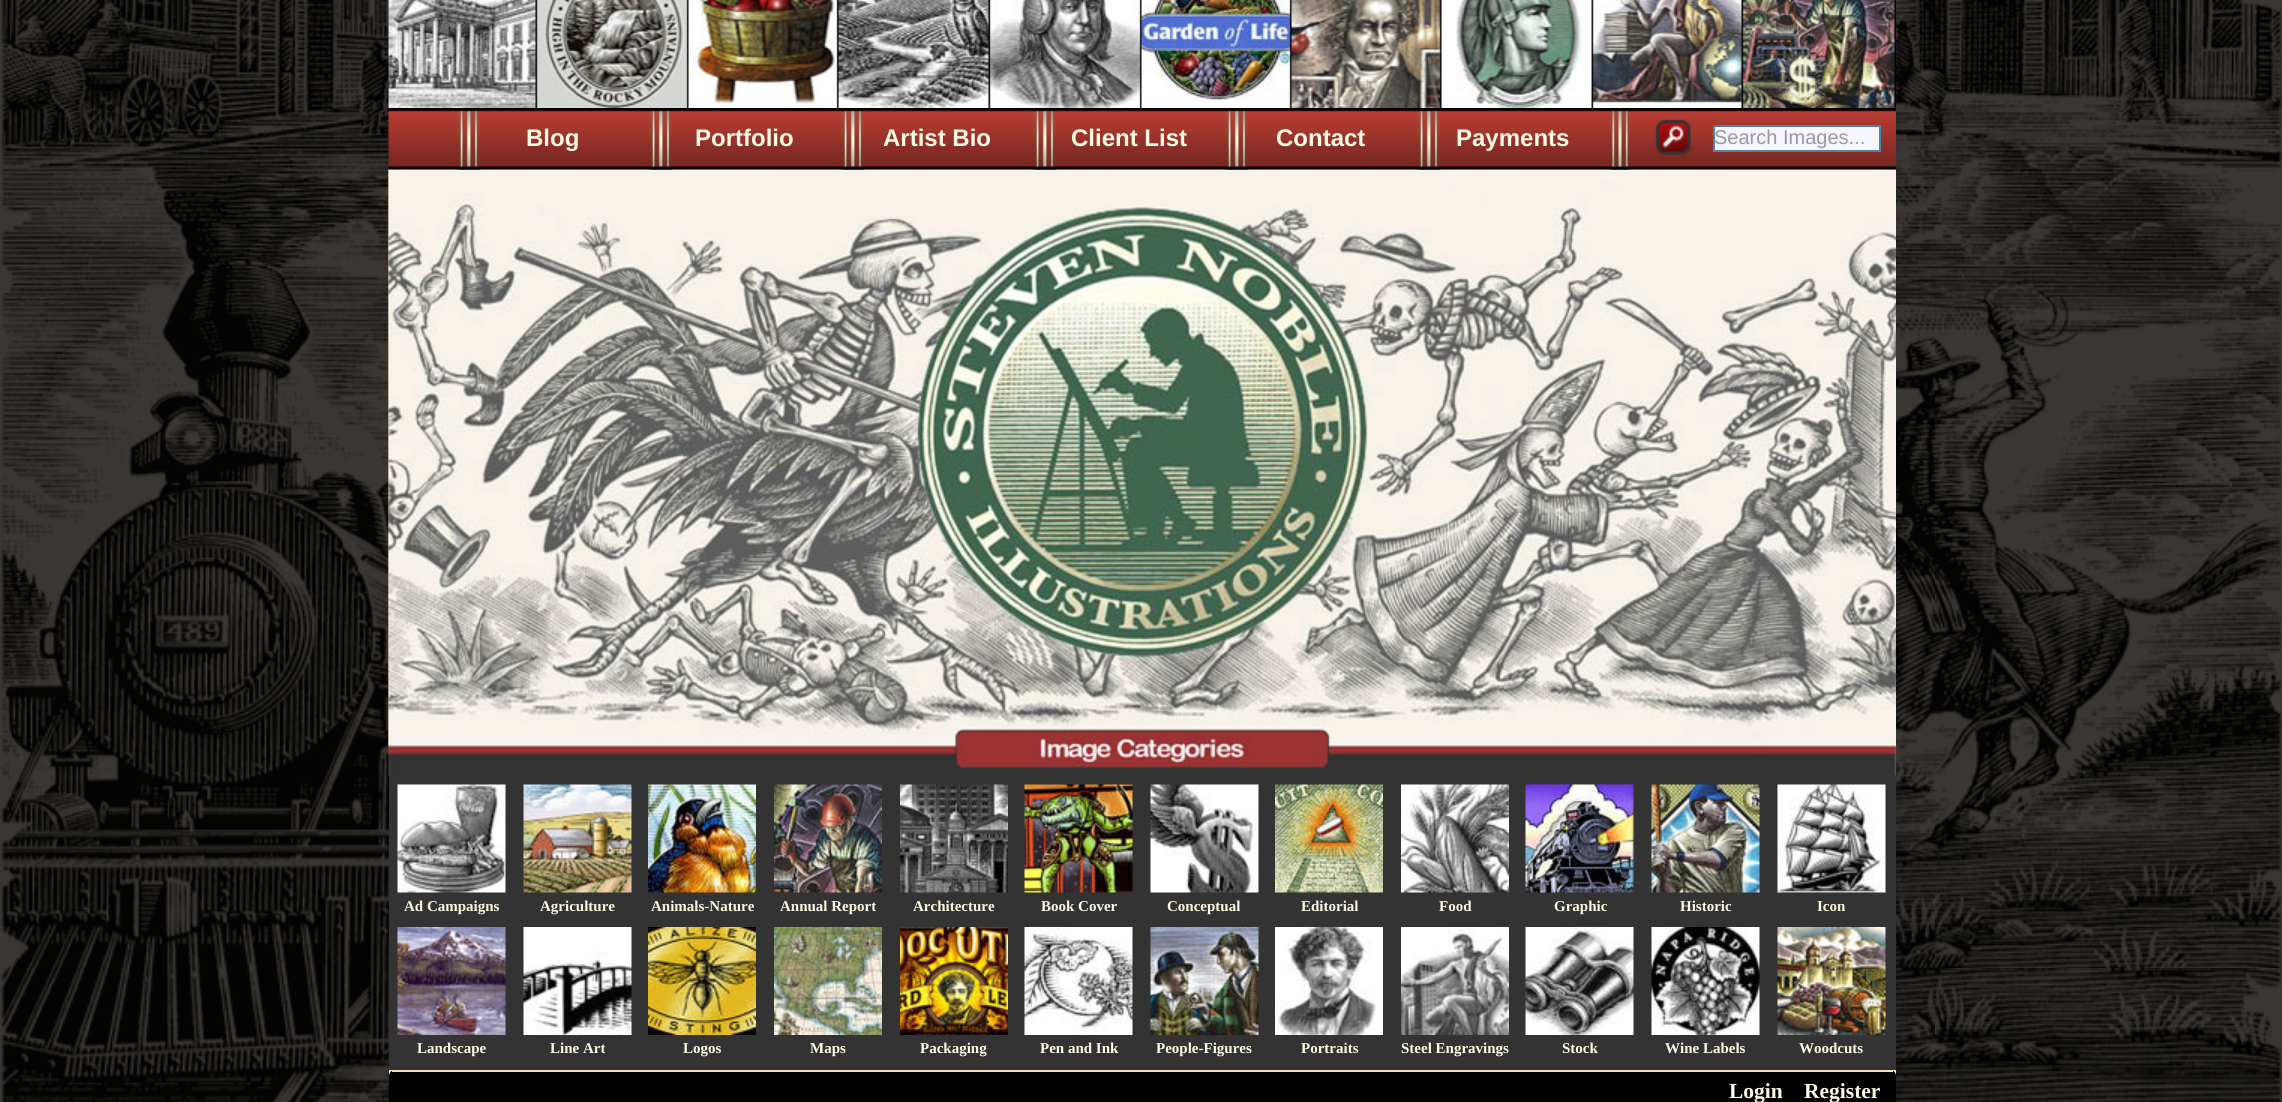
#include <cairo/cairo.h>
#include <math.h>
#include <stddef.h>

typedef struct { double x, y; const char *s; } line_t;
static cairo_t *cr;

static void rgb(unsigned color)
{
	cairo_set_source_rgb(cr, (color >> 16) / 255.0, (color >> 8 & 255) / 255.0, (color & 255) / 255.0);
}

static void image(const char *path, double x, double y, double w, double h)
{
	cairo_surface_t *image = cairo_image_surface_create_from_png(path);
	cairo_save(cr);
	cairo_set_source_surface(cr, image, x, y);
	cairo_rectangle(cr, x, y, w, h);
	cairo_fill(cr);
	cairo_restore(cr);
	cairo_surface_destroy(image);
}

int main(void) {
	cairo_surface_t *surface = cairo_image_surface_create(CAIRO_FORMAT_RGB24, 2282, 1102);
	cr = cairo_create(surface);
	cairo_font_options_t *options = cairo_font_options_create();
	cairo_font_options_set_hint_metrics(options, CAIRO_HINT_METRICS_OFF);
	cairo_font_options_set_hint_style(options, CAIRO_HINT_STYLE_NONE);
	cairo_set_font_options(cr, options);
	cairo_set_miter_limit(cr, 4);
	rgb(0xffffff);
	cairo_paint(cr);
	image("img/1.png", 0, 0, 2282, 1102);
	rgb(0xffffff);
	cairo_rectangle(cr, 389, 1070, 1507, 6);
	cairo_fill(cr);
	rgb(0x333333);
	cairo_rectangle(cr, 389, 775, 1507, 295);
	cairo_fill(cr);
	image("img/8.png", 388, 169, 1, 577);
	image("img/9.png", 388, 169, 1508, 607);
	rgb(0xdddddd);
	cairo_rectangle(cr, 389, 169, 1507, 1);
	cairo_fill(cr);
	image("img/2.png", 388, 0, 1508, 170);
	image("img/3.png", 388, 0, 1507, 108);
	image("img/4.png", 457, 108, 23, 62);
	image("img/5.png", 649, 108, 23, 62);
	image("img/4.png", 841, 108, 23, 62);
	image("img/4.png", 1033, 108, 23, 62);
	image("img/4.png", 1225, 108, 23, 62);
	image("img/4.png", 1417, 108, 23, 62);
	image("img/6.png", 1609, 108, 22, 62);
	image("img/7.png", 1655, 119, 36, 36);
	rgb(0xf6f6ff);
	cairo_rectangle(cr, 1714, 126, 166, 25);
	cairo_fill_preserve(cr);
	rgb(0x4488aa);
	cairo_stroke(cr);
	image("img/10.png", 397, 784, 109, 109);
	image("img/11.png", 523, 784, 109, 109);
	image("img/12.png", 648, 784, 108, 109);
	image("img/13.png", 774, 784, 108, 109);
	image("img/14.png", 900, 784, 108, 109);
	image("img/15.png", 1024, 784, 109, 109);
	image("img/16.png", 1150, 784, 109, 109);
	image("img/17.png", 1275, 784, 108, 109);
	image("img/18.png", 1401, 784, 108, 109);
	image("img/19.png", 1525, 784, 109, 109);
	image("img/20.png", 1651, 784, 109, 109);
	image("img/21.png", 1777, 784, 109, 109);
	image("img/22.png", 397, 927, 109, 108);
	image("img/23.png", 523, 927, 109, 108);
	image("img/24.png", 648, 927, 108, 108);
	image("img/25.png", 774, 927, 108, 108);
	image("img/26.png", 900, 927, 108, 108);
	image("img/27.png", 1024, 927, 109, 108);
	image("img/28.png", 1150, 927, 109, 108);
	image("img/29.png", 1275, 927, 108, 108);
	image("img/30.png", 1401, 927, 108, 108);
	image("img/31.png", 1525, 927, 109, 108);
	image("img/32.png", 1651, 927, 109, 108);
	image("img/33.png", 1777, 927, 109, 108);
	rgb(0x000000);
	cairo_new_path(cr);
	cairo_move_to(cr, 395, 1070);
	cairo_line_to(cr, 1890, 1070);
	cairo_curve_to(cr, 1893.5, 1070, 1896, 1072.5, 1896, 1076);
	cairo_line_to(cr, 1896, 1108);
	cairo_line_to(cr, 389, 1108);
	cairo_line_to(cr, 389, 1076);
	cairo_curve_to(cr, 389, 1072.5, 391.5, 1070, 395, 1070);
	cairo_close_path(cr);
	cairo_fill(cr);
	rgb(0xf8e2bd);
	cairo_rectangle(cr, 392, 1070, 1501, 2);
	cairo_fill(cr);
	cairo_select_font_face(cr, "Liberation Sans", CAIRO_FONT_SLANT_NORMAL, CAIRO_FONT_WEIGHT_BOLD);
	cairo_set_font_size(cr, 24);
	rgb(0xfffae4);
	{
		static const line_t items[] = {
			{526, 146, "Blog"},
			{695, 146, "Portfolio"},
			{883, 146, "Artist Bio"},
			{1071, 146, "Client List"},
			{1276, 146, "Contact"},
			{1456, 146, "Payments"},
		};
		for (size_t i = 0; i < sizeof items / sizeof *items; i++) {
			cairo_move_to(cr, items[i].x, items[i].y);
			cairo_show_text(cr, items[i].s);
		}
	}
	cairo_select_font_face(cr, "Liberation Sans", CAIRO_FONT_SLANT_NORMAL, CAIRO_FONT_WEIGHT_NORMAL);
	cairo_set_font_size(cr, 20);
	rgb(0x999999);
	cairo_move_to(cr, 1714, 144);
	cairo_show_text(cr, "Search Images...");
	cairo_select_font_face(cr, "Liberation Serif", CAIRO_FONT_SLANT_NORMAL, CAIRO_FONT_WEIGHT_BOLD);
	cairo_set_font_size(cr, 15);
	rgb(0xfffae4);
	{
		static const line_t items[] = {
			{404, 911, "Ad Campaigns"},
			{540, 911, "Agriculture"},
			{651, 911, "Animals-Nature"},
			{780, 911, "Annual Report"},
			{913, 911, "Architecture"},
			{1041, 911, "Book Cover"},
			{1167, 911, "Conceptual"},
			{1301, 911, "Editorial"},
			{1439, 911, "Food"},
			{1554, 911, "Graphic"},
			{1680, 911, "Historic"},
			{1817, 911, "Icon"},
			{417, 1053, "Landscape"},
			{550, 1053, "Line Art"},
			{683, 1053, "Logos"},
			{810, 1053, "Maps"},
			{920, 1053, "Packaging"},
			{1040, 1053, "Pen and Ink"},
			{1156, 1053, "People-Figures"},
			{1301, 1053, "Portraits"},
			{1401, 1053, "Steel Engravings"},
			{1562, 1053, "Stock"},
			{1665, 1053, "Wine Labels"},
			{1799, 1053, "Woodcuts"},
		};
		for (size_t i = 0; i < sizeof items / sizeof *items; i++) {
			cairo_move_to(cr, items[i].x, items[i].y);
			cairo_show_text(cr, items[i].s);
		}
	}
	cairo_set_font_size(cr, 21.5);
	cairo_move_to(cr, 1729, 1098);
	cairo_show_text(cr, "Login");
	cairo_move_to(cr, 1804, 1098);
	cairo_show_text(cr, "Register");
	cairo_surface_write_to_png(surface, "page.png");
	cairo_font_options_destroy(options);
	cairo_destroy(cr);
	cairo_surface_destroy(surface);
	return 0;
}
